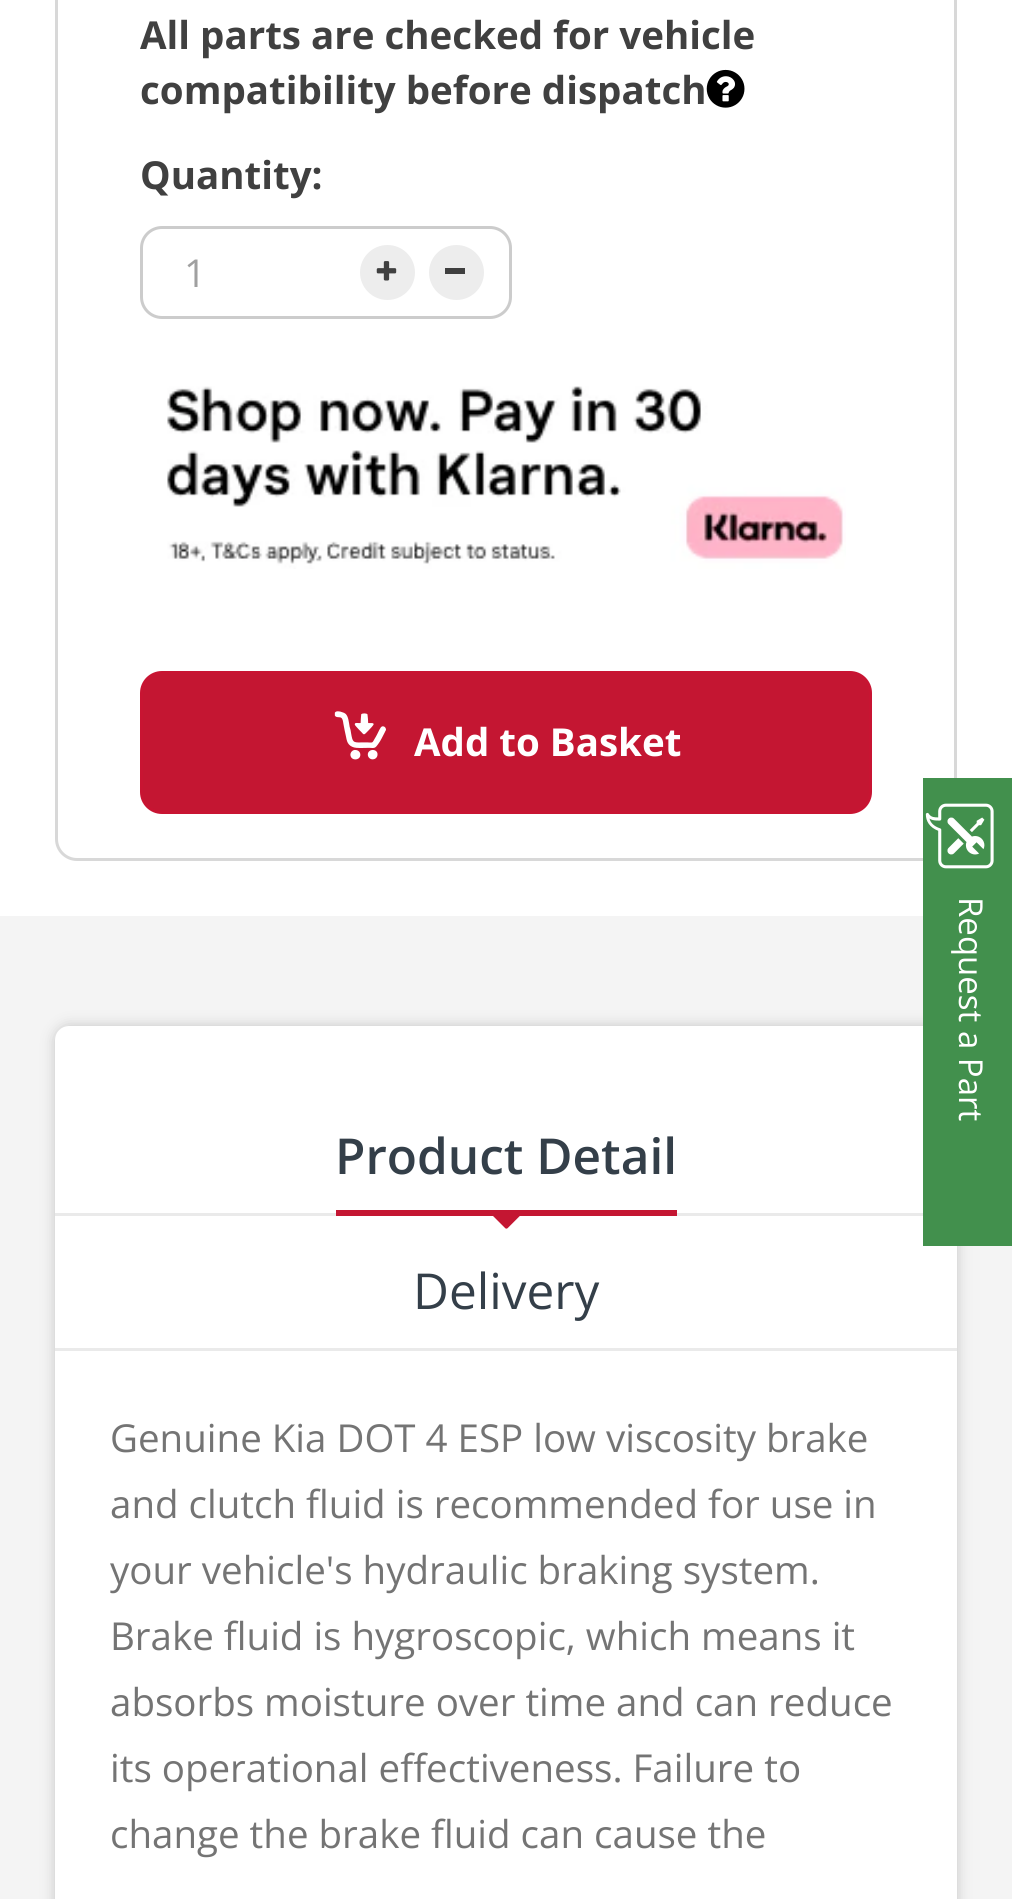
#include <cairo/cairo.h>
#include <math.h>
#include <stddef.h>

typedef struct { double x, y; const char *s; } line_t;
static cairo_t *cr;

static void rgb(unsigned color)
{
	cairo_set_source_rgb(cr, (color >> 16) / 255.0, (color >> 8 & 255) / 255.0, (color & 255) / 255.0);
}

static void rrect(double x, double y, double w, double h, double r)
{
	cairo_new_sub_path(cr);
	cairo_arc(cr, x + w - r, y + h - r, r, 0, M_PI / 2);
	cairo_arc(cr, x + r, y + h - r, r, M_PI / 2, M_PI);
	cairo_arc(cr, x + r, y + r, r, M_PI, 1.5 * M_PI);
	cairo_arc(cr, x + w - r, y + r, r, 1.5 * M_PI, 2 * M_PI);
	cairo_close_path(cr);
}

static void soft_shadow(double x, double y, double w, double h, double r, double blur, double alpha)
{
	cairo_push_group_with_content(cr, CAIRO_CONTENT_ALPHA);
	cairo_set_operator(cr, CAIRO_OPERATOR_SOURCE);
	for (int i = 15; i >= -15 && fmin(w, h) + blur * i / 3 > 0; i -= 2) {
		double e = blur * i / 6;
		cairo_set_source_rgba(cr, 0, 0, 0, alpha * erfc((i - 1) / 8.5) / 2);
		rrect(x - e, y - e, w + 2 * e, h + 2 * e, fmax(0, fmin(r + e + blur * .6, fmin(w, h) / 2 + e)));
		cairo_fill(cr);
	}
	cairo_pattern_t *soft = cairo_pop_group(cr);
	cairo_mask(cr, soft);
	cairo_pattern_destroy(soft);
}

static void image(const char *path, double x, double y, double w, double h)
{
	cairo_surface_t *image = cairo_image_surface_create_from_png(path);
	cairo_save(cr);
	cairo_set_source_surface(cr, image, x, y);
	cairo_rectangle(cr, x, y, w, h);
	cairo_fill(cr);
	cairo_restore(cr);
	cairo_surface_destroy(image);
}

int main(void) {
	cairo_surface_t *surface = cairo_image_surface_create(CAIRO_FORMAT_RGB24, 1012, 1899);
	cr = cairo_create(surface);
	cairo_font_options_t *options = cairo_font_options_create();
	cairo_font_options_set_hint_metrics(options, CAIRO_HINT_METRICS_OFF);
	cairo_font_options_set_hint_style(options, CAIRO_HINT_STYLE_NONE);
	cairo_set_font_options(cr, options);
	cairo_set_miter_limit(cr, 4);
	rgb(0xffffff);
	cairo_paint(cr);
	rrect(56.5, -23.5, 899, 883, 20.5);
	rgb(0xd8d8d8);
	cairo_set_line_width(cr, 3);
	cairo_stroke(cr);
	image("img/1.png", 706, 69, 39, 39);
	rrect(141.5, 227.5, 369, 90, 20.5);
	rgb(0xcccccc);
	cairo_stroke(cr);
	rgb(0xededed);
	cairo_arc(cr, 387.5, 272.5, 27.5, 0, 2 * M_PI);
	cairo_fill(cr);
	image("img/2.png", 376, 261, 21, 20);
	cairo_arc(cr, 456.5, 272.5, 27.5, 0, 2 * M_PI);
	cairo_fill(cr);
	rgb(0x404040);
	cairo_rectangle(cr, 445, 268, 20, 6);
	cairo_fill(cr);
	image("img/3.png", 167, 386, 679, 183);
	rgb(0xc41632);
	rrect(141.5, 672.5, 729, 140, 20.5);
	cairo_fill_preserve(cr);
	rgb(0xc81432);
	cairo_stroke(cr);
	image("img/4.png", 334, 711, 52, 49);
	rgb(0xf4f4f4);
	cairo_rectangle(cr, 0, 916, 1012, 983);
	cairo_fill(cr);
	rgb(0xc6c6c6);
	soft_shadow(55, 1026, 902, 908, 14, 7, 1);
	rgb(0xffffff);
	rrect(55, 1026, 902, 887, 14);
	cairo_fill(cr);
	rgb(0xeaeaea);
	cairo_rectangle(cr, 55, 1213, 868, 3);
	cairo_fill(cr);
	rgb(0xc41632);
	cairo_rectangle(cr, 336, 1210, 341, 6);
	cairo_fill(cr);
	image("img/5.png", 493, 1216, 27, 13);
	rgb(0xeaeaea);
	cairo_rectangle(cr, 55, 1348, 902, 3);
	cairo_fill(cr);
	rgb(0x42904d);
	cairo_rectangle(cr, 923, 778, 89, 468);
	cairo_fill(cr);
	image("img/6.png", 925, 803, 69, 66);
	cairo_select_font_face(cr, "Open Sans", CAIRO_FONT_SLANT_NORMAL, CAIRO_FONT_WEIGHT_BOLD);
	cairo_set_font_size(cr, 38.5);
	rgb(0x404040);
	{
		static const line_t items[] = {
			{140, 49, "All parts are checked for vehicle"},
			{140, 104, "compatibility before dispatch"},
			{140, 189, "Quantity:"},
		};
		for (size_t i = 0; i < sizeof items / sizeof *items; i++) {
			cairo_move_to(cr, items[i].x, items[i].y);
			cairo_show_text(cr, items[i].s);
		}
	}
	cairo_select_font_face(cr, "Open Sans", CAIRO_FONT_SLANT_NORMAL, CAIRO_FONT_WEIGHT_NORMAL);
	rgb(0xa0a0a0);
	cairo_move_to(cr, 184, 287);
	cairo_show_text(cr, "1");
	cairo_select_font_face(cr, "Open Sans", CAIRO_FONT_SLANT_NORMAL, CAIRO_FONT_WEIGHT_BOLD);
	rgb(0xffffff);
	cairo_move_to(cr, 414, 756);
	cairo_show_text(cr, "Add to Basket");
	cairo_select_font_face(cr, "Open Sans SemiBold", CAIRO_FONT_SLANT_NORMAL, CAIRO_FONT_WEIGHT_NORMAL);
	cairo_set_font_size(cr, 49.5);
	rgb(0x343f49);
	cairo_move_to(cr, 335, 1174);
	cairo_show_text(cr, "Product Detail");
	cairo_select_font_face(cr, "Open Sans", CAIRO_FONT_SLANT_NORMAL, CAIRO_FONT_WEIGHT_NORMAL);
	cairo_move_to(cr, 413, 1309);
	cairo_show_text(cr, "Delivery");
	cairo_set_font_size(cr, 38.5);
	rgb(0x747474);
	{
		static const line_t items[] = {
			{110, 1452, "Genuine Kia DOT 4 ESP low viscosity brake"},
			{110, 1518, "and clutch fluid is recommended for use in"},
			{110, 1584, "your vehicle's hydraulic braking system."},
			{110, 1650, "Brake fluid is hygroscopic, which means it"},
			{110, 1716, "absorbs moisture over time and can reduce"},
			{110, 1782, "its operational effectiveness. Failure to"},
			{110, 1848, "change the brake fluid can cause the"},
		};
		for (size_t i = 0; i < sizeof items / sizeof *items; i++) {
			cairo_move_to(cr, items[i].x, items[i].y);
			cairo_show_text(cr, items[i].s);
		}
	}
	cairo_set_font_size(cr, 33);
	rgb(0xffffff);
	cairo_save(cr);
	cairo_translate(cr, 959, 897);
	cairo_rotate(cr, 90 * M_PI / 180);
	cairo_move_to(cr, 0, 0);
	cairo_show_text(cr, "Request a Part");
	cairo_restore(cr);
	cairo_surface_write_to_png(surface, "page.png");
	cairo_font_options_destroy(options);
	cairo_destroy(cr);
	cairo_surface_destroy(surface);
	return 0;
}
